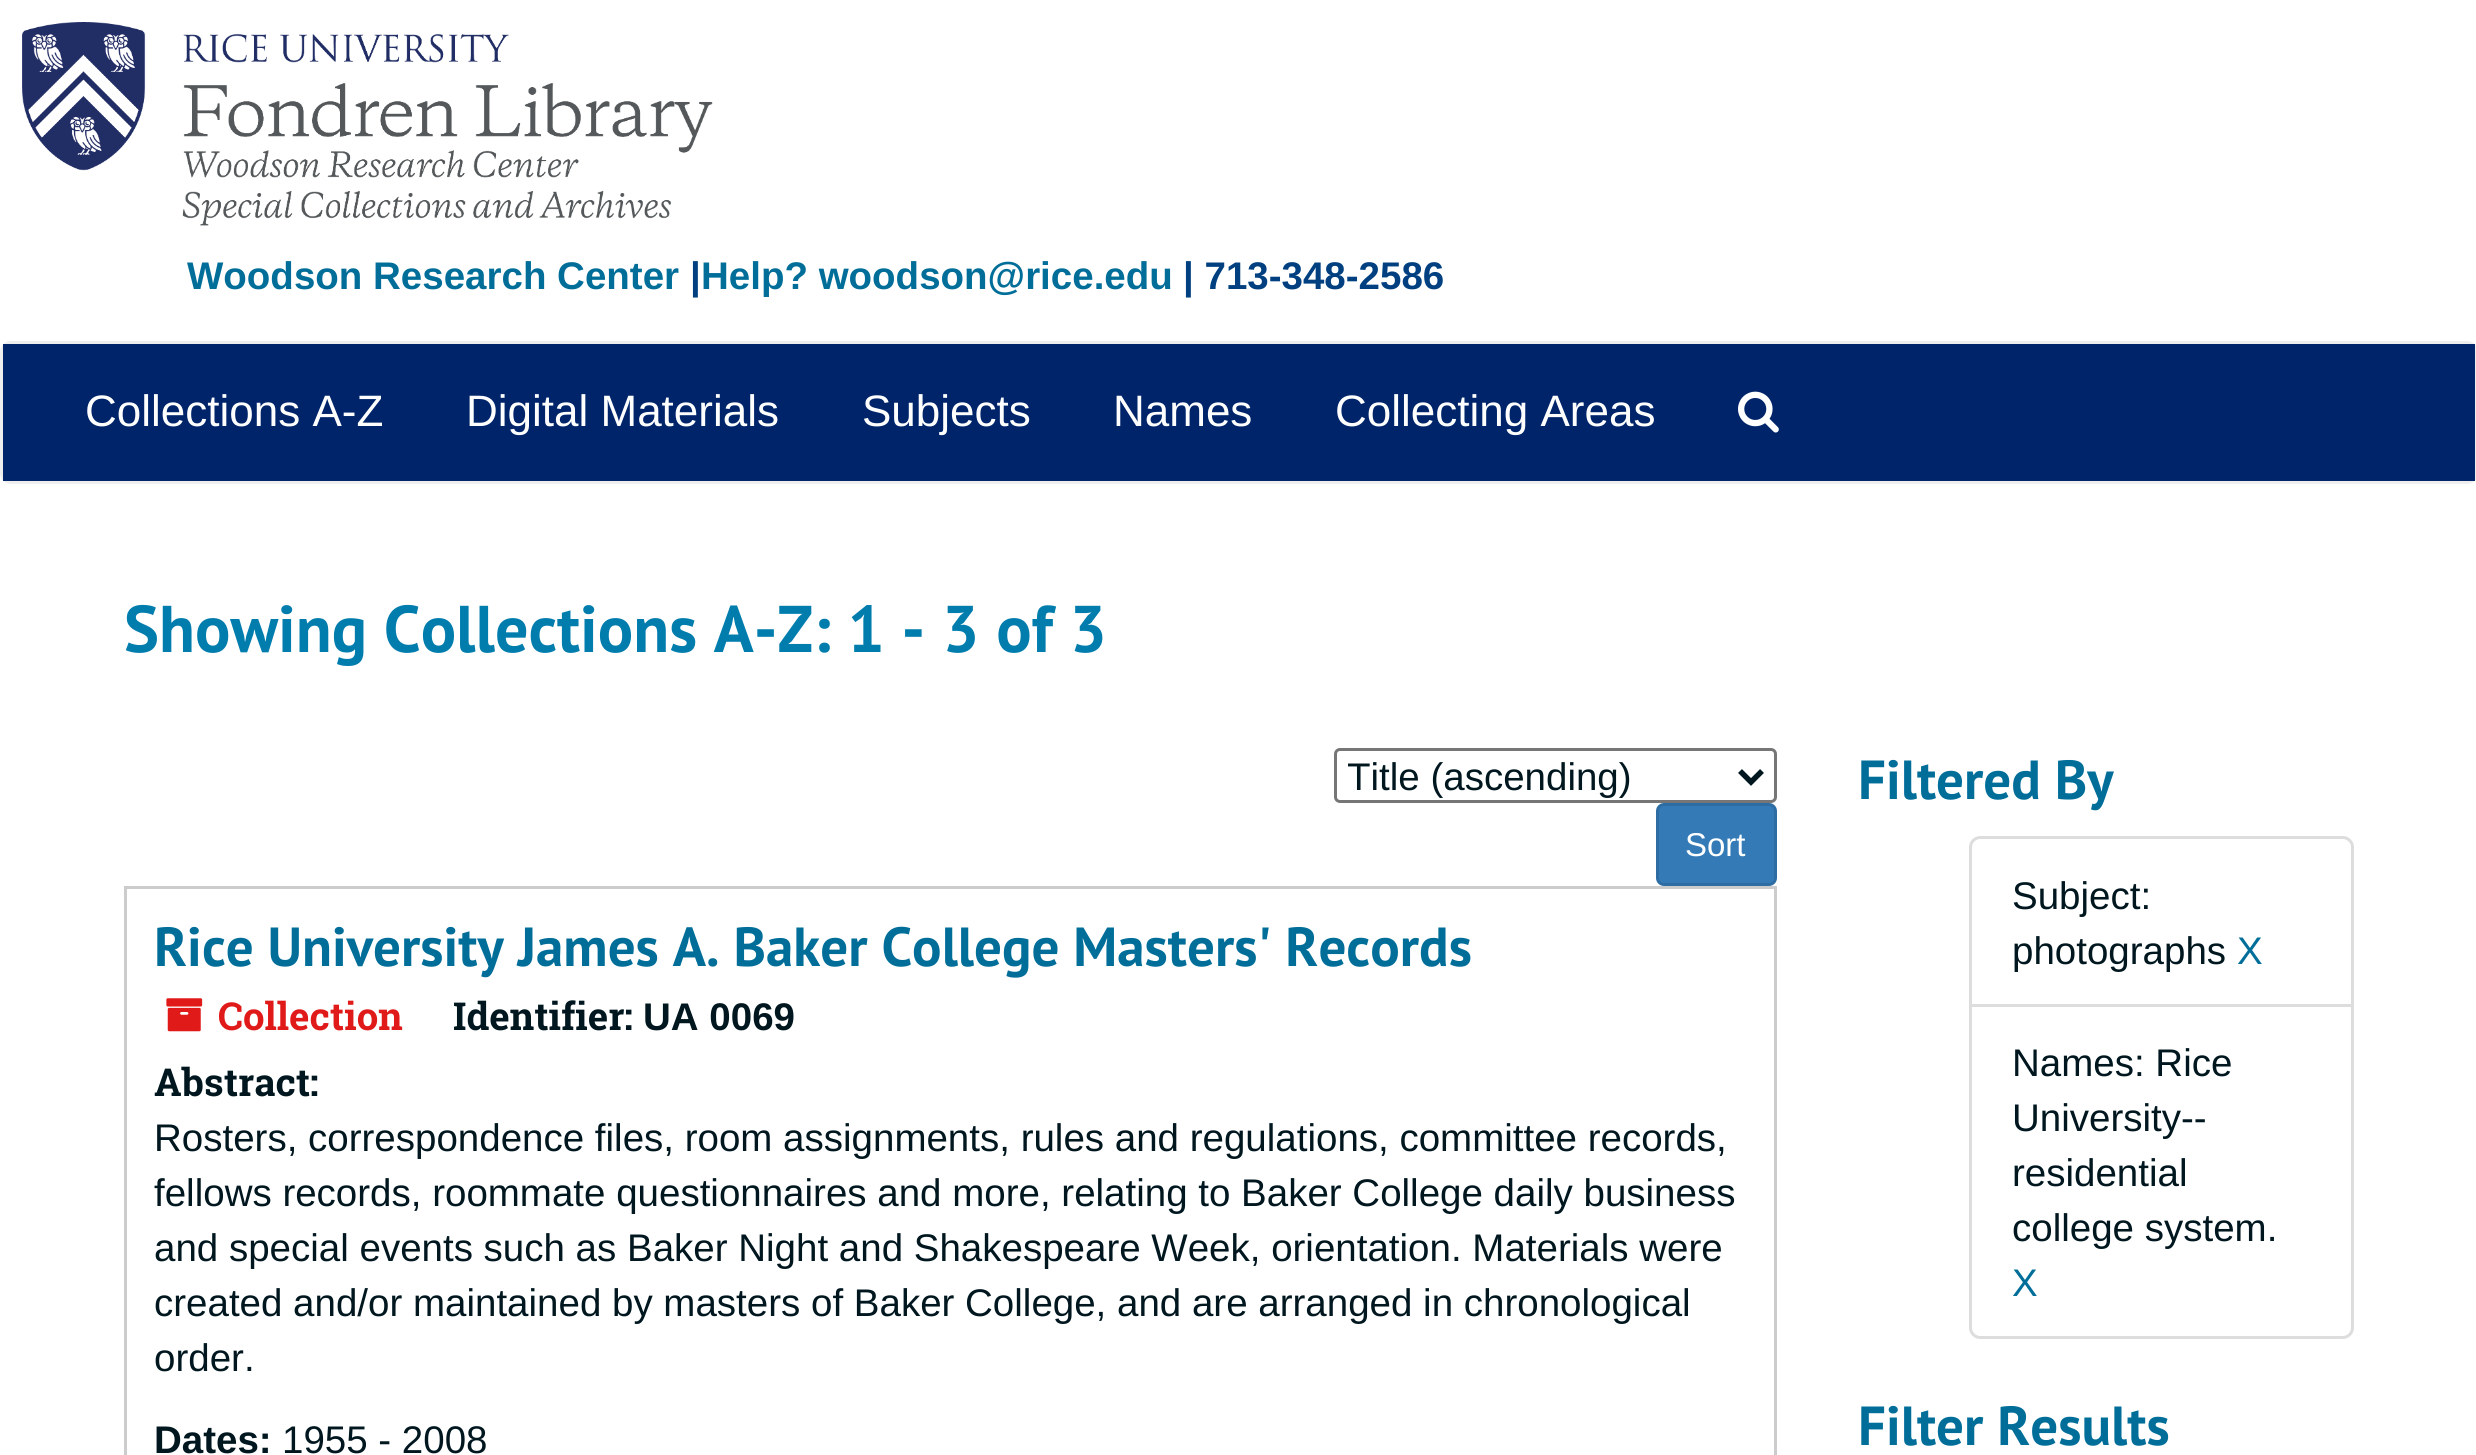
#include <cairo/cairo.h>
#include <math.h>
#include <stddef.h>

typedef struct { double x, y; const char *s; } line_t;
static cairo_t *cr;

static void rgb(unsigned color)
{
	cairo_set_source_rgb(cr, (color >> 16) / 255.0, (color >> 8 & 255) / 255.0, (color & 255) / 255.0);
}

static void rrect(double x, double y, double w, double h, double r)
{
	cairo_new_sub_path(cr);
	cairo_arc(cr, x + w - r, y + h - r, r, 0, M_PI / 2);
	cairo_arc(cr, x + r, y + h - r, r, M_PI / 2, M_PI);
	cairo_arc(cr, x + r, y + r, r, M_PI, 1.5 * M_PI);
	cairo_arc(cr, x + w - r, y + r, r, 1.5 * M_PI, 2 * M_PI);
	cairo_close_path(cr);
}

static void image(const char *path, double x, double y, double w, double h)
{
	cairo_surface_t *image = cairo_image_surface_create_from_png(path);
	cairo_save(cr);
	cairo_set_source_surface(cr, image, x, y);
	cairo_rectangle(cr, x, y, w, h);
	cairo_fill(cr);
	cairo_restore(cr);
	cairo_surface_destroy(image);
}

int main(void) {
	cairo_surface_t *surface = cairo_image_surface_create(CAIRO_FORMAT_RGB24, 2476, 1455);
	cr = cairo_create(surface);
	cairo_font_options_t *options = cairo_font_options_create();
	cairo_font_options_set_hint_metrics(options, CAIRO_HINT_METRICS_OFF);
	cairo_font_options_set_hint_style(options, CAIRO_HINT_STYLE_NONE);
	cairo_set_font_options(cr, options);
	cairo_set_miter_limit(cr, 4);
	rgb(0xffffff);
	cairo_paint(cr);
	image("img/1.png", 22, 22, 691, 204);
	rrect(1.5, 342.5, 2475, 140, 9.5);
	rgb(0xeeeeee);
	cairo_set_line_width(cr, 3);
	cairo_stroke(cr);
	rgb(0x002469);
	cairo_rectangle(cr, 3, 344, 2472, 137);
	cairo_fill(cr);
	image("img/2.png", 1738, 391, 41, 42);
	rrect(1335.5, 749.5, 440, 52, 4.5);
	rgb(0x767676);
	cairo_stroke(cr);
	cairo_new_path(cr);
	cairo_move_to(cr, 1740, 771);
	cairo_line_to(cr, 1751, 782);
	cairo_line_to(cr, 1762, 771);
	rgb(0x00171f);
	cairo_set_line_width(cr, 5.5);
	cairo_stroke(cr);
	rgb(0x337ab7);
	rrect(1657.5, 804.5, 118, 80, 6.5);
	cairo_fill_preserve(cr);
	rgb(0x2e6da4);
	cairo_set_line_width(cr, 3);
	cairo_stroke(cr);
	cairo_rectangle(cr, 125.5, 887.5, 1650, 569);
	rgb(0xcccccc);
	cairo_stroke(cr);
	image("img/3.png", 166, 998, 37, 34);
	cairo_new_path(cr);
	cairo_move_to(cr, 1980, 837.5);
	cairo_line_to(cr, 2343, 837.5);
	cairo_curve_to(cr, 2348, 837.5, 2352.5, 842, 2352.5, 847);
	cairo_line_to(cr, 2352.5, 1005.5);
	cairo_line_to(cr, 1970.5, 1005.5);
	cairo_line_to(cr, 1970.5, 847);
	cairo_curve_to(cr, 1970.5, 842, 1975, 837.5, 1980, 837.5);
	cairo_close_path(cr);
	rgb(0xdddddd);
	cairo_stroke(cr);
	rgb(0xffffff);
	cairo_new_path(cr);
	cairo_move_to(cr, 1970.5, 1005.5);
	cairo_line_to(cr, 2352.5, 1005.5);
	cairo_line_to(cr, 2352.5, 1328);
	cairo_curve_to(cr, 2352.5, 1333, 2348, 1337.5, 2343, 1337.5);
	cairo_line_to(cr, 1980, 1337.5);
	cairo_curve_to(cr, 1975, 1337.5, 1970.5, 1333, 1970.5, 1328);
	cairo_close_path(cr);
	cairo_fill_preserve(cr);
	rgb(0xdddddd);
	cairo_stroke(cr);
	cairo_select_font_face(cr, "Liberation Sans", CAIRO_FONT_SLANT_NORMAL, CAIRO_FONT_WEIGHT_BOLD);
	cairo_set_font_size(cr, 38.5);
	rgb(0x006e99);
	cairo_move_to(cr, 187, 289);
	cairo_show_text(cr, "Woodson Research Center");
	rgb(0x004080);
	cairo_move_to(cr, 690, 289);
	cairo_show_text(cr, "|");
	rgb(0x006e99);
	cairo_move_to(cr, 701, 289);
	cairo_show_text(cr, "Help? woodson@rice.edu");
	rgb(0x004080);
	cairo_move_to(cr, 1183, 289);
	cairo_show_text(cr, "| 713-348-2586");
	cairo_select_font_face(cr, "Liberation Sans", CAIRO_FONT_SLANT_NORMAL, CAIRO_FONT_WEIGHT_NORMAL);
	cairo_set_font_size(cr, 44);
	rgb(0xffffff);
	{
		static const line_t items[] = {
			{85, 426, "Collections A-Z"},
			{466, 426, "Digital Materials"},
			{862, 426, "Subjects"},
			{1113, 426, "Names"},
			{1335, 426, "Collecting Areas"},
		};
		for (size_t i = 0; i < sizeof items / sizeof *items; i++) {
			cairo_move_to(cr, items[i].x, items[i].y);
			cairo_show_text(cr, items[i].s);
		}
	}
	cairo_select_font_face(cr, "PT Sans", CAIRO_FONT_SLANT_NORMAL, CAIRO_FONT_WEIGHT_BOLD);
	cairo_set_font_size(cr, 66);
	rgb(0x007cad);
	cairo_move_to(cr, 124, 652);
	cairo_show_text(cr, "Showing Collections A-Z: 1 - 3 of 3");
	cairo_save(cr);
	cairo_rectangle(cr, 1348, 751, 382, 49);
	cairo_clip(cr);
	cairo_select_font_face(cr, "Liberation Sans", CAIRO_FONT_SLANT_NORMAL, CAIRO_FONT_WEIGHT_NORMAL);
	cairo_set_font_size(cr, 38.5);
	rgb(0x00171f);
	cairo_move_to(cr, 1347, 790);
	cairo_show_text(cr, "Title (ascending)");
	cairo_restore(cr);
	cairo_select_font_face(cr, "Liberation Sans", CAIRO_FONT_SLANT_NORMAL, CAIRO_FONT_WEIGHT_NORMAL);
	cairo_set_font_size(cr, 33);
	rgb(0xffffff);
	cairo_move_to(cr, 1685, 856);
	cairo_show_text(cr, "Sort");
	cairo_select_font_face(cr, "PT Sans", CAIRO_FONT_SLANT_NORMAL, CAIRO_FONT_WEIGHT_BOLD);
	cairo_set_font_size(cr, 55);
	rgb(0x006e99);
	cairo_move_to(cr, 154, 966);
	cairo_show_text(cr, "Rice University James A. Baker College Masters' Records");
	cairo_select_font_face(cr, "Roboto Slab", CAIRO_FONT_SLANT_NORMAL, CAIRO_FONT_WEIGHT_BOLD);
	cairo_set_font_size(cr, 38.5);
	rgb(0xe01919);
	cairo_move_to(cr, 218, 1030);
	cairo_show_text(cr, "Collection");
	rgb(0x00171f);
	cairo_move_to(cr, 453, 1030);
	cairo_show_text(cr, "Identifier:");
	cairo_select_font_face(cr, "Liberation Sans", CAIRO_FONT_SLANT_NORMAL, CAIRO_FONT_WEIGHT_BOLD);
	cairo_move_to(cr, 643, 1030);
	cairo_show_text(cr, "UA 0069");
	cairo_select_font_face(cr, "Roboto Slab", CAIRO_FONT_SLANT_NORMAL, CAIRO_FONT_WEIGHT_BOLD);
	cairo_move_to(cr, 154, 1096);
	cairo_show_text(cr, "Abstract:");
	cairo_select_font_face(cr, "Liberation Sans", CAIRO_FONT_SLANT_NORMAL, CAIRO_FONT_WEIGHT_NORMAL);
	{
		static const line_t items[] = {
			{154, 1151, "Rosters, correspondence files, room assignments, rules and regulations, committee records,"},
			{154, 1206, "fellows records, roommate questionnaires and more, relating to Baker College daily business"},
			{154, 1261, "and special events such as Baker Night and Shakespeare Week, orientation. Materials were"},
			{154, 1316, "created and/or maintained by masters of Baker College, and are arranged in chronological"},
			{154, 1371, "order."},
		};
		for (size_t i = 0; i < sizeof items / sizeof *items; i++) {
			cairo_move_to(cr, items[i].x, items[i].y);
			cairo_show_text(cr, items[i].s);
		}
	}
	cairo_select_font_face(cr, "Liberation Sans", CAIRO_FONT_SLANT_NORMAL, CAIRO_FONT_WEIGHT_BOLD);
	cairo_move_to(cr, 154, 1453);
	cairo_show_text(cr, "Dates:");
	cairo_select_font_face(cr, "Liberation Sans", CAIRO_FONT_SLANT_NORMAL, CAIRO_FONT_WEIGHT_NORMAL);
	cairo_move_to(cr, 282, 1453);
	cairo_show_text(cr, "1955 - 2008");
	cairo_select_font_face(cr, "PT Sans", CAIRO_FONT_SLANT_NORMAL, CAIRO_FONT_WEIGHT_BOLD);
	cairo_set_font_size(cr, 55);
	rgb(0x006e99);
	cairo_move_to(cr, 1858, 799);
	cairo_show_text(cr, "Filtered By");
	cairo_select_font_face(cr, "Liberation Sans", CAIRO_FONT_SLANT_NORMAL, CAIRO_FONT_WEIGHT_NORMAL);
	cairo_set_font_size(cr, 38.5);
	rgb(0x00171f);
	cairo_move_to(cr, 2012, 909);
	cairo_show_text(cr, "Subject:");
	cairo_move_to(cr, 2012, 964);
	cairo_show_text(cr, "photographs");
	rgb(0x006e99);
	cairo_move_to(cr, 2237, 964);
	cairo_show_text(cr, "X");
	rgb(0x00171f);
	{
		static const line_t items[] = {
			{2012, 1076, "Names: Rice"},
			{2012, 1131, "University--"},
			{2012, 1186, "residential"},
			{2012, 1241, "college system."},
		};
		for (size_t i = 0; i < sizeof items / sizeof *items; i++) {
			cairo_move_to(cr, items[i].x, items[i].y);
			cairo_show_text(cr, items[i].s);
		}
	}
	rgb(0x006e99);
	cairo_move_to(cr, 2012, 1296);
	cairo_show_text(cr, "X");
	cairo_select_font_face(cr, "PT Sans", CAIRO_FONT_SLANT_NORMAL, CAIRO_FONT_WEIGHT_BOLD);
	cairo_set_font_size(cr, 55);
	cairo_move_to(cr, 1858, 1445);
	cairo_show_text(cr, "Filter Results");
	cairo_surface_write_to_png(surface, "page.png");
	cairo_font_options_destroy(options);
	cairo_destroy(cr);
	cairo_surface_destroy(surface);
	return 0;
}
